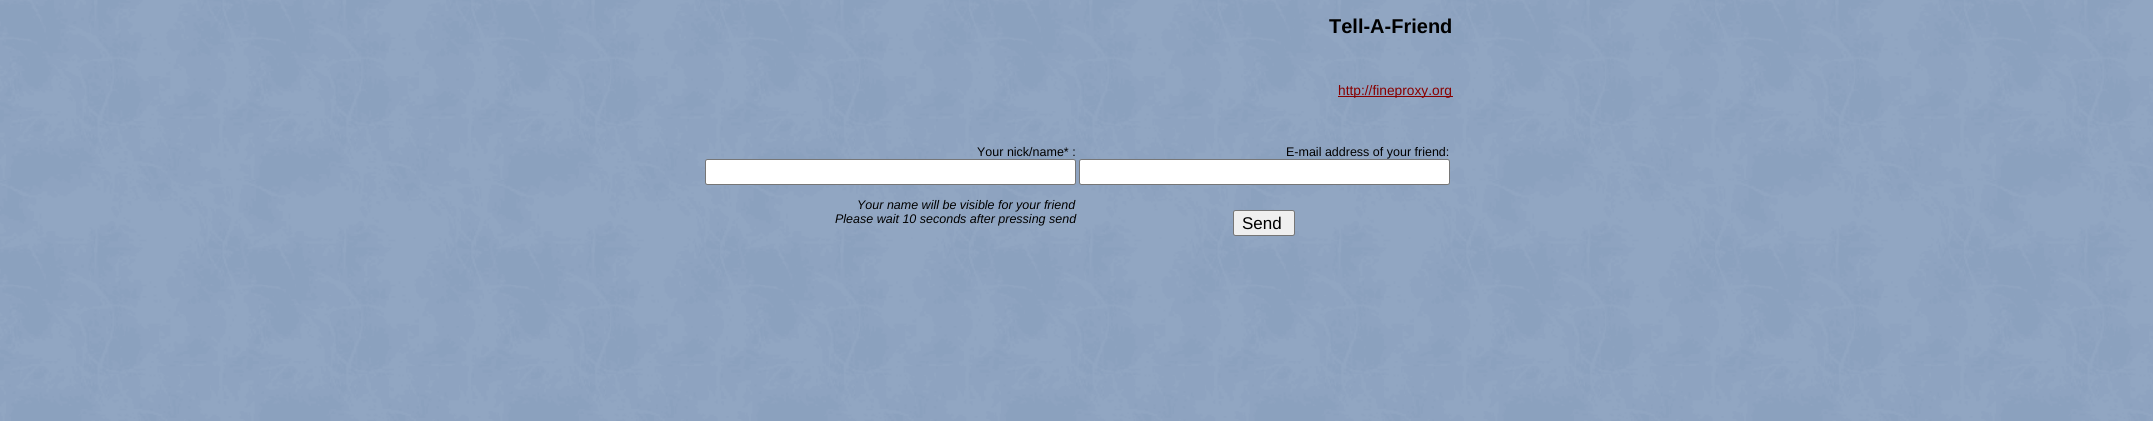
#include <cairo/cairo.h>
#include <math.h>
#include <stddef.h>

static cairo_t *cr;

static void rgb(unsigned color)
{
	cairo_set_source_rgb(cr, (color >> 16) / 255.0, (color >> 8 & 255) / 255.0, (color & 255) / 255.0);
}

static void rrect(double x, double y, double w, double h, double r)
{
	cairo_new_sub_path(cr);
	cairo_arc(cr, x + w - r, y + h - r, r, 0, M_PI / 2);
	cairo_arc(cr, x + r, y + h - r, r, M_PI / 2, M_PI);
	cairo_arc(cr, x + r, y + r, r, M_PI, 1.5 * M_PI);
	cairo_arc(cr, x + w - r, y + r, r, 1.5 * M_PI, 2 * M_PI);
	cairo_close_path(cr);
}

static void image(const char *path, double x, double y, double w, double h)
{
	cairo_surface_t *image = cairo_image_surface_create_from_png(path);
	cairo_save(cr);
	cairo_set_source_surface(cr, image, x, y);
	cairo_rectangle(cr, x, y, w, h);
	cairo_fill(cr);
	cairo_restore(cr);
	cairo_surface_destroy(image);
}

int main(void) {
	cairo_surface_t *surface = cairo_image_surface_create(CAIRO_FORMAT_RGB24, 2153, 421);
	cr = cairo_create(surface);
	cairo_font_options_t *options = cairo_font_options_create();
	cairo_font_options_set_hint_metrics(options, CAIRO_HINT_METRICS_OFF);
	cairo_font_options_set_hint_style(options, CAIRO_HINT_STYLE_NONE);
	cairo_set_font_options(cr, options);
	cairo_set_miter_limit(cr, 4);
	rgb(0xffffff);
	cairo_paint(cr);
	image("img/1.png", 0, 0, 2153, 421);
	rgb(0x880000);
	cairo_rectangle(cr, 1338, 96, 115, 1);
	cairo_fill(cr);
	rgb(0xffffff);
	rrect(705.5, 159.5, 370, 25, 2);
	cairo_fill_preserve(cr);
	rgb(0x767676);
	cairo_set_line_width(cr, 1);
	cairo_stroke(cr);
	rgb(0xffffff);
	rrect(1079.5, 159.5, 370, 25, 2);
	cairo_fill_preserve(cr);
	rgb(0x767676);
	cairo_stroke(cr);
	rgb(0xefefef);
	rrect(1233.5, 210.5, 61, 25, 2);
	cairo_fill_preserve(cr);
	rgb(0x767676);
	cairo_stroke(cr);
	cairo_select_font_face(cr, "Liberation Sans", CAIRO_FONT_SLANT_NORMAL, CAIRO_FONT_WEIGHT_BOLD);
	cairo_set_font_size(cr, 20);
	rgb(0x000000);
	cairo_move_to(cr, 1329, 33);
	cairo_show_text(cr, "Tell-A-Friend");
	cairo_select_font_face(cr, "Liberation Sans", CAIRO_FONT_SLANT_NORMAL, CAIRO_FONT_WEIGHT_NORMAL);
	cairo_set_font_size(cr, 13.75);
	rgb(0x880000);
	cairo_move_to(cr, 1338, 95);
	cairo_show_text(cr, "http://fineproxy.org");
	cairo_set_font_size(cr, 12.5);
	rgb(0x000000);
	cairo_move_to(cr, 977, 156);
	cairo_show_text(cr, "Your nick/name* :");
	cairo_move_to(cr, 1286, 156);
	cairo_show_text(cr, "E-mail address of your friend:");
	cairo_select_font_face(cr, "Liberation Sans", CAIRO_FONT_SLANT_ITALIC, CAIRO_FONT_WEIGHT_NORMAL);
	cairo_move_to(cr, 857, 209);
	cairo_show_text(cr, "Your name will be visible for your friend");
	cairo_move_to(cr, 835, 223);
	cairo_show_text(cr, "Please wait 10 seconds after pressing send");
	cairo_select_font_face(cr, "Liberation Sans", CAIRO_FONT_SLANT_NORMAL, CAIRO_FONT_WEIGHT_NORMAL);
	cairo_set_font_size(cr, 17);
	cairo_move_to(cr, 1242, 229);
	cairo_show_text(cr, "Send");
	cairo_surface_write_to_png(surface, "page.png");
	cairo_font_options_destroy(options);
	cairo_destroy(cr);
	cairo_surface_destroy(surface);
	return 0;
}
